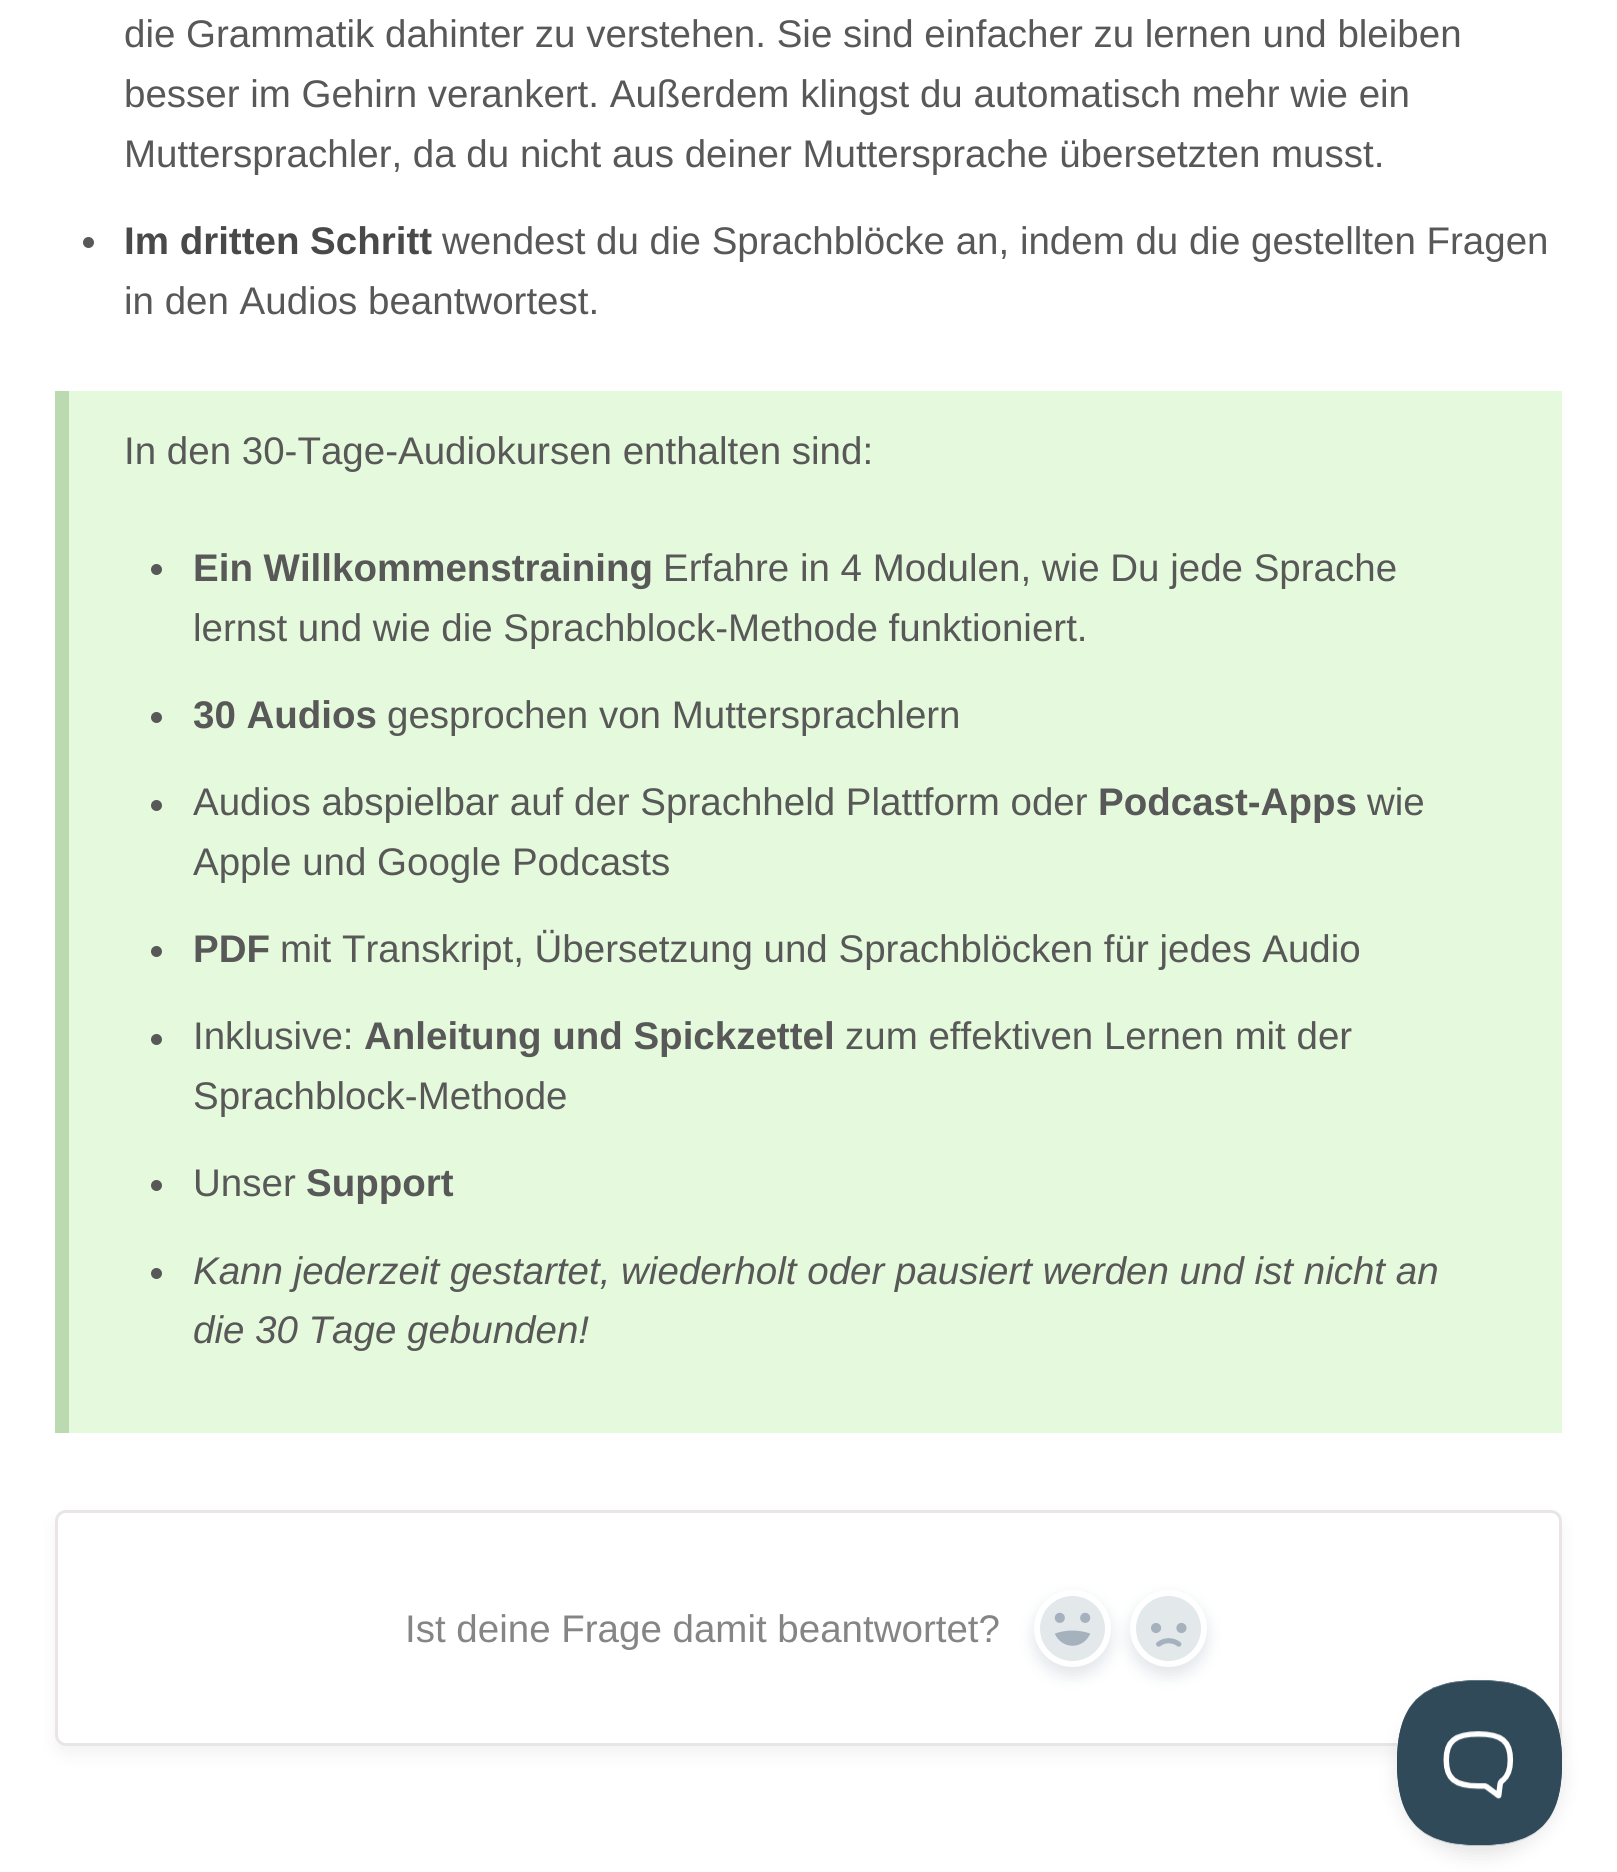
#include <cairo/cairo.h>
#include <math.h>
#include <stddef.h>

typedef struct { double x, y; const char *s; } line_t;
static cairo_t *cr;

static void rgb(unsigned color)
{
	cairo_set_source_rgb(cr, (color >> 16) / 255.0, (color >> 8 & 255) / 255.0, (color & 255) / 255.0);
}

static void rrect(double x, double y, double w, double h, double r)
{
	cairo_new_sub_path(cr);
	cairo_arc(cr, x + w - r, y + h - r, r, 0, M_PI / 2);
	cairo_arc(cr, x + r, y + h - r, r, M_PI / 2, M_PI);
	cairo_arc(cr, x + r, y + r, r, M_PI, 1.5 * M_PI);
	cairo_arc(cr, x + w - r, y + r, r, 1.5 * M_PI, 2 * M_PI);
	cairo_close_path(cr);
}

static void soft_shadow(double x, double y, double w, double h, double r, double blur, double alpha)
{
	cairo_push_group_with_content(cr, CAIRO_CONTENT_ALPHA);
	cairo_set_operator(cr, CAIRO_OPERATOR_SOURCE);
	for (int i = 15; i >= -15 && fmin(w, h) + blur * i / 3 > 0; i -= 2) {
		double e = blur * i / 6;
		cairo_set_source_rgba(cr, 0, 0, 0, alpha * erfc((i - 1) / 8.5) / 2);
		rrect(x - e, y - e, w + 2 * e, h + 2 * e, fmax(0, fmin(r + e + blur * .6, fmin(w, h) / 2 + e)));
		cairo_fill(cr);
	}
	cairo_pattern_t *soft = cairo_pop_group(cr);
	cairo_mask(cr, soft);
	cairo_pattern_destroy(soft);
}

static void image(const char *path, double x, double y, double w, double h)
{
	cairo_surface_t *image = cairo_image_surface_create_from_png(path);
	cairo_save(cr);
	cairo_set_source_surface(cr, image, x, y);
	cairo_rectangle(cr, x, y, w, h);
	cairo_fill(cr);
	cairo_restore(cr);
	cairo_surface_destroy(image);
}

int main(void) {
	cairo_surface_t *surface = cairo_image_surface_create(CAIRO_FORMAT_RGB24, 1617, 1872);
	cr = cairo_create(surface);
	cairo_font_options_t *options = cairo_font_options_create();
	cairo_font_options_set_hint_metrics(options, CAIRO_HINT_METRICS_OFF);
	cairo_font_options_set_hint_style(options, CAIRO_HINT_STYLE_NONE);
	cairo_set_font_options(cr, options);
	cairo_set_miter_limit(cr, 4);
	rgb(0xffffff);
	cairo_paint(cr);
	rgb(0x585858);
	cairo_arc(cr, 88.5, 242.5, 5.5, 0, 2 * M_PI);
	cairo_fill(cr);
	rgb(0xe5fadc);
	cairo_rectangle(cr, 69, 391, 1493, 1042);
	cairo_fill(cr);
	rgb(0xbbdaaf);
	cairo_rectangle(cr, 55, 391, 14, 1042);
	cairo_fill(cr);
	rgb(0x585858);
	cairo_arc(cr, 156.5, 569.5, 5.5, 0, 2 * M_PI);
	cairo_fill(cr);
	cairo_arc(cr, 156.5, 717.5, 5.5, 0, 2 * M_PI);
	cairo_fill(cr);
	cairo_arc(cr, 156.5, 805.5, 5.5, 0, 2 * M_PI);
	cairo_fill(cr);
	cairo_arc(cr, 156.5, 951.5, 5.5, 0, 2 * M_PI);
	cairo_fill(cr);
	cairo_arc(cr, 156.5, 1039.5, 5.5, 0, 2 * M_PI);
	cairo_fill(cr);
	cairo_arc(cr, 156.5, 1185.5, 5.5, 0, 2 * M_PI);
	cairo_fill(cr);
	cairo_arc(cr, 156.5, 1273.5, 5.5, 0, 2 * M_PI);
	cairo_fill(cr);
	cairo_save(cr);
	cairo_set_fill_rule(cr, CAIRO_FILL_RULE_EVEN_ODD);
	cairo_new_path(cr);
	cairo_move_to(cr, 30, 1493);
	cairo_line_to(cr, 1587, 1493);
	cairo_line_to(cr, 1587, 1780);
	cairo_line_to(cr, 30, 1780);
	cairo_close_path(cr);
	cairo_move_to(cr, 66, 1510);
	cairo_line_to(cr, 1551, 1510);
	cairo_curve_to(cr, 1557, 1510, 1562, 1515, 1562, 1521);
	cairo_line_to(cr, 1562, 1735);
	cairo_curve_to(cr, 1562, 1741, 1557, 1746, 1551, 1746);
	cairo_line_to(cr, 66, 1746);
	cairo_curve_to(cr, 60, 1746, 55, 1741, 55, 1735);
	cairo_line_to(cr, 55, 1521);
	cairo_curve_to(cr, 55, 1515, 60, 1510, 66, 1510);
	cairo_close_path(cr);
	cairo_clip(cr);
	rgb(0x000000);
	soft_shadow(55, 1518, 1507, 237, 11, 8, 0.05);
	cairo_restore(cr);
	rrect(56.5, 1511.5, 1504, 233, 9.5);
	rgb(0xe9e5e5);
	cairo_set_line_width(cr, 3);
	cairo_stroke(cr);
	rgb(0xc1cbd4);
	soft_shadow(1034, 1598, 77, 77, 38.5, 8, 0.5);
	rgb(0xe3e8eb);
	cairo_arc(cr, 1072.5, 1628.5, 35.5, 0, 2 * M_PI);
	cairo_fill_preserve(cr);
	rgb(0xffffff);
	cairo_set_line_width(cr, 6);
	cairo_stroke(cr);
	image("img/1.png", 1054, 1612, 37, 34);
	rgb(0xc1cbd4);
	soft_shadow(1130, 1598, 77, 77, 38.5, 8, 0.5);
	rgb(0xe3e8eb);
	cairo_arc(cr, 1168.5, 1628.5, 35.5, 0, 2 * M_PI);
	cairo_fill_preserve(cr);
	rgb(0xffffff);
	cairo_stroke(cr);
	image("img/2.png", 1151, 1623, 36, 24);
	rgb(0x000000);
	soft_shadow(1397, 1691, 165, 165, 82.5, 9.5, 0.1);
	image("img/3.png", 1397, 1680, 165, 166);
	cairo_select_font_face(cr, "Liberation Sans", CAIRO_FONT_SLANT_NORMAL, CAIRO_FONT_WEIGHT_NORMAL);
	cairo_set_font_size(cr, 38.5);
	rgb(0x585858);
	{
		static const line_t items[] = {
			{124, 47, "die Grammatik dahinter zu verstehen. Sie sind einfacher zu lernen und bleiben"},
			{124, 107, "besser im Gehirn verankert. Außerdem klingst du automatisch mehr wie ein"},
			{124, 167, "Muttersprachler, da du nicht aus deiner Muttersprache übersetzten musst."},
		};
		for (size_t i = 0; i < sizeof items / sizeof *items; i++) {
			cairo_move_to(cr, items[i].x, items[i].y);
			cairo_show_text(cr, items[i].s);
		}
	}
	cairo_select_font_face(cr, "Liberation Sans", CAIRO_FONT_SLANT_NORMAL, CAIRO_FONT_WEIGHT_BOLD);
	rgb(0x494949);
	cairo_move_to(cr, 124, 254);
	cairo_show_text(cr, "Im dritten Schritt");
	cairo_select_font_face(cr, "Liberation Sans", CAIRO_FONT_SLANT_NORMAL, CAIRO_FONT_WEIGHT_NORMAL);
	rgb(0x585858);
	{
		static const line_t items[] = {
			{442, 254, "wendest du die Sprachblöcke an, indem du die gestellten Fragen"},
			{124, 314, "in den Audios beantwortest."},
			{124, 464, "In den 30-Tage-Audiokursen enthalten sind:"},
		};
		for (size_t i = 0; i < sizeof items / sizeof *items; i++) {
			cairo_move_to(cr, items[i].x, items[i].y);
			cairo_show_text(cr, items[i].s);
		}
	}
	cairo_select_font_face(cr, "Liberation Sans", CAIRO_FONT_SLANT_NORMAL, CAIRO_FONT_WEIGHT_BOLD);
	cairo_move_to(cr, 193, 581);
	cairo_show_text(cr, "Ein Willkommenstraining");
	cairo_select_font_face(cr, "Liberation Sans", CAIRO_FONT_SLANT_NORMAL, CAIRO_FONT_WEIGHT_NORMAL);
	cairo_move_to(cr, 663, 581);
	cairo_show_text(cr, "Erfahre in 4 Modulen, wie Du jede Sprache");
	cairo_move_to(cr, 193, 641);
	cairo_show_text(cr, "lernst und wie die Sprachblock-Methode funktioniert.");
	cairo_select_font_face(cr, "Liberation Sans", CAIRO_FONT_SLANT_NORMAL, CAIRO_FONT_WEIGHT_BOLD);
	cairo_move_to(cr, 193, 728);
	cairo_show_text(cr, "30 Audios");
	cairo_select_font_face(cr, "Liberation Sans", CAIRO_FONT_SLANT_NORMAL, CAIRO_FONT_WEIGHT_NORMAL);
	cairo_move_to(cr, 387, 728);
	cairo_show_text(cr, "gesprochen von Muttersprachlern");
	cairo_move_to(cr, 193, 815);
	cairo_show_text(cr, "Audios abspielbar auf der Sprachheld Plattform oder");
	cairo_select_font_face(cr, "Liberation Sans", CAIRO_FONT_SLANT_NORMAL, CAIRO_FONT_WEIGHT_BOLD);
	cairo_move_to(cr, 1098, 815);
	cairo_show_text(cr, "Podcast-Apps");
	cairo_select_font_face(cr, "Liberation Sans", CAIRO_FONT_SLANT_NORMAL, CAIRO_FONT_WEIGHT_NORMAL);
	cairo_move_to(cr, 1367, 815);
	cairo_show_text(cr, "wie");
	cairo_move_to(cr, 193, 875);
	cairo_show_text(cr, "Apple und Google Podcasts");
	cairo_select_font_face(cr, "Liberation Sans", CAIRO_FONT_SLANT_NORMAL, CAIRO_FONT_WEIGHT_BOLD);
	cairo_move_to(cr, 193, 962);
	cairo_show_text(cr, "PDF");
	cairo_select_font_face(cr, "Liberation Sans", CAIRO_FONT_SLANT_NORMAL, CAIRO_FONT_WEIGHT_NORMAL);
	cairo_move_to(cr, 280, 962);
	cairo_show_text(cr, "mit Transkript, Übersetzung und Sprachblöcken für jedes Audio");
	cairo_move_to(cr, 193, 1049);
	cairo_show_text(cr, "Inklusive:");
	cairo_select_font_face(cr, "Liberation Sans", CAIRO_FONT_SLANT_NORMAL, CAIRO_FONT_WEIGHT_BOLD);
	cairo_move_to(cr, 364, 1049);
	cairo_show_text(cr, "Anleitung und Spickzettel");
	cairo_select_font_face(cr, "Liberation Sans", CAIRO_FONT_SLANT_NORMAL, CAIRO_FONT_WEIGHT_NORMAL);
	{
		static const line_t items[] = {
			{845, 1049, "zum effektiven Lernen mit der"},
			{193, 1109, "Sprachblock-Methode"},
			{193, 1196, "Unser"},
		};
		for (size_t i = 0; i < sizeof items / sizeof *items; i++) {
			cairo_move_to(cr, items[i].x, items[i].y);
			cairo_show_text(cr, items[i].s);
		}
	}
	cairo_select_font_face(cr, "Liberation Sans", CAIRO_FONT_SLANT_NORMAL, CAIRO_FONT_WEIGHT_BOLD);
	cairo_move_to(cr, 306, 1196);
	cairo_show_text(cr, "Support");
	cairo_select_font_face(cr, "Liberation Sans", CAIRO_FONT_SLANT_ITALIC, CAIRO_FONT_WEIGHT_NORMAL);
	cairo_move_to(cr, 193, 1284);
	cairo_show_text(cr, "Kann jederzeit gestartet, wiederholt oder pausiert werden und ist nicht an");
	cairo_move_to(cr, 193, 1343);
	cairo_show_text(cr, "die 30 Tage gebunden!");
	cairo_select_font_face(cr, "Liberation Sans", CAIRO_FONT_SLANT_NORMAL, CAIRO_FONT_WEIGHT_NORMAL);
	rgb(0x858585);
	cairo_move_to(cr, 405, 1642);
	cairo_show_text(cr, "Ist deine Frage damit beantwortet?");
	cairo_surface_write_to_png(surface, "page.png");
	cairo_font_options_destroy(options);
	cairo_destroy(cr);
	cairo_surface_destroy(surface);
	return 0;
}
